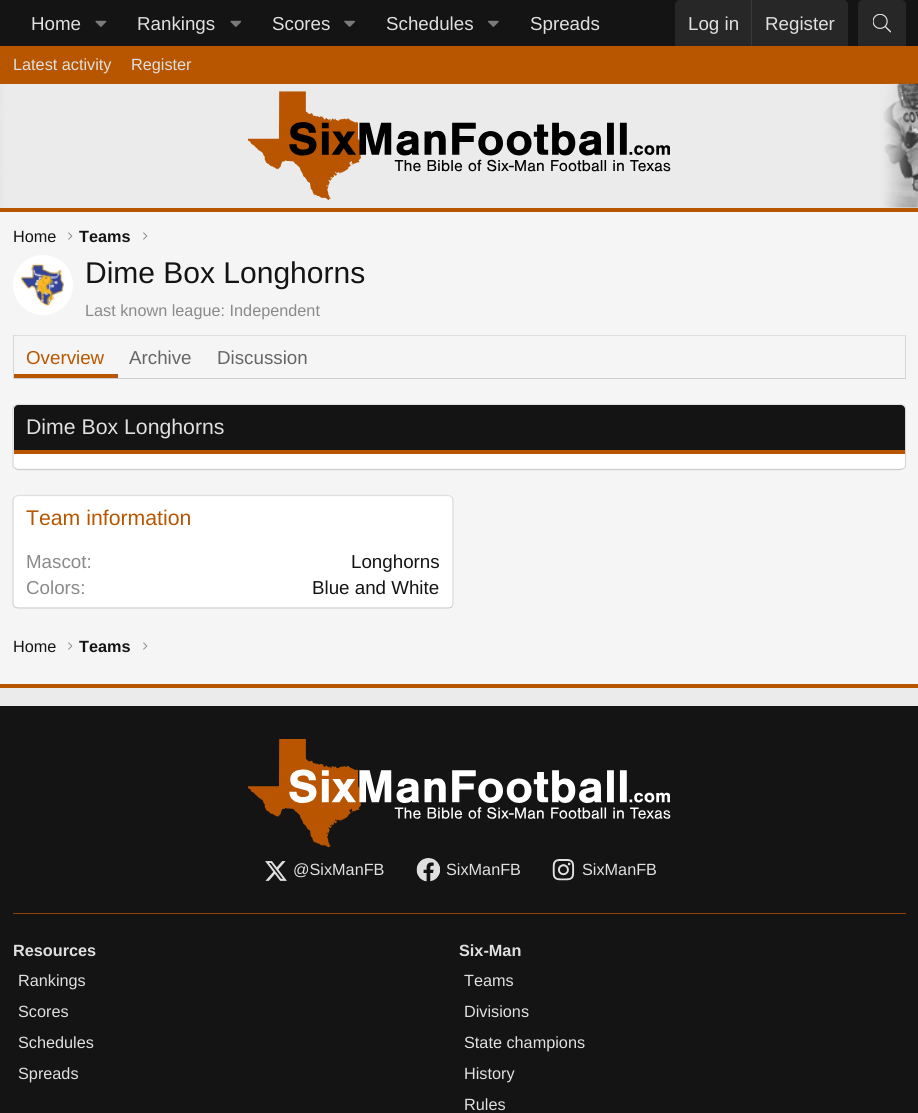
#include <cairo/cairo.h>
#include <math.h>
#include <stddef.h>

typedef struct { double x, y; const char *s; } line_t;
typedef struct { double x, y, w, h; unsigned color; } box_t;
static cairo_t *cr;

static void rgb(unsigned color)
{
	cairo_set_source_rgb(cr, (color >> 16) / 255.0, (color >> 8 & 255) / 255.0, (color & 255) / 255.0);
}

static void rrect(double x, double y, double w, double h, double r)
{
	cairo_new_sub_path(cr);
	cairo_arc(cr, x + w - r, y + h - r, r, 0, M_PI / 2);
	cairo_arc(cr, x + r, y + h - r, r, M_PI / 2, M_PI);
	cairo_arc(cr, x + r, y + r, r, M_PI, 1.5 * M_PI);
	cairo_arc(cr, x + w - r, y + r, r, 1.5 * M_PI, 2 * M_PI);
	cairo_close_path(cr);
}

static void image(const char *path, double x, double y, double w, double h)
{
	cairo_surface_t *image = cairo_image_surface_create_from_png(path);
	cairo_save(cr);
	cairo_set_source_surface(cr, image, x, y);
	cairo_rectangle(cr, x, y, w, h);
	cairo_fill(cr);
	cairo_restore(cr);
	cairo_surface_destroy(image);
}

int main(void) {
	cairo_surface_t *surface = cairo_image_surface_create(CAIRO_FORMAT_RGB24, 918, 1113);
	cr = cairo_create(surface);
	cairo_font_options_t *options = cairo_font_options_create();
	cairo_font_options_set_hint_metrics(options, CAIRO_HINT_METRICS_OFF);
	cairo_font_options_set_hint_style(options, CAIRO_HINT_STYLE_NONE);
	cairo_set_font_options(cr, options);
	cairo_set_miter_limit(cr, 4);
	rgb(0xebebeb);
	cairo_paint(cr);
	rgb(0x141414);
	cairo_rectangle(cr, 0, 0, 918, 46);
	cairo_fill(cr);
	image("img/1.png", 95, 20, 12, 7);
	image("img/2.png", 230, 20, 11, 7);
	image("img/3.png", 344, 20, 11, 7);
	image("img/4.png", 488, 20, 11, 7);
	rgb(0x272727);
	cairo_new_path(cr);
	cairo_move_to(cr, 680, 0);
	cairo_line_to(cr, 843, 0);
	cairo_curve_to(cr, 846, 0, 848, 2, 848, 5);
	cairo_line_to(cr, 848, 46);
	cairo_line_to(cr, 675, 46);
	cairo_line_to(cr, 675, 5);
	cairo_curve_to(cr, 675, 2, 677, 0, 680, 0);
	cairo_close_path(cr);
	cairo_fill(cr);
	rgb(0x383838);
	cairo_rectangle(cr, 751, 0, 1, 46);
	cairo_fill(cr);
	rgb(0x272727);
	cairo_new_path(cr);
	cairo_move_to(cr, 863, 0);
	cairo_line_to(cr, 901, 0);
	cairo_curve_to(cr, 904, 0, 906, 2, 906, 5);
	cairo_line_to(cr, 906, 46);
	cairo_line_to(cr, 858, 46);
	cairo_line_to(cr, 858, 5);
	cairo_curve_to(cr, 858, 2, 860, 0, 863, 0);
	cairo_close_path(cr);
	cairo_fill(cr);
	image("img/5.png", 873, 14, 18, 19);
	rgb(0xb85600);
	cairo_rectangle(cr, 0, 46, 918, 38);
	cairo_fill(cr);
	image("img/6.png", 0, 83, 918, 125);
	image("img/7.png", 248, 91, 423, 109);
	{
		static const box_t items[] = {
			{0, 212, 918, 472, 0xf5f5f5},
			{0, 208, 918, 4, 0xb85600},
			{0, 684, 918, 4, 0xb85600},
		};
		for (size_t i = 0; i < sizeof items / sizeof *items; i++) {
			rgb(items[i].color);
			cairo_rectangle(cr, items[i].x, items[i].y, items[i].w, items[i].h);
			cairo_fill(cr);
		}
	}
	image("img/8.png", 68, 232, 5, 8);
	image("img/8.png", 143, 232, 5, 8);
	rgb(0xffffff);
	cairo_arc(cr, 43, 285, 30, 0, 2 * M_PI);
	cairo_fill(cr);
	image("img/9.png", 20, 263, 44, 44);
	{
		static const box_t items[] = {
			{13, 335, 893, 1, 0xe0e0e0},
			{905, 335, 1, 44, 0xd6d6d6},
			{13, 378, 893, 1, 0xcccccc},
			{13, 335, 1, 44, 0xd6d6d6},
			{14, 374, 104, 4, 0xb85600},
		};
		for (size_t i = 0; i < sizeof items / sizeof *items; i++) {
			rgb(items[i].color);
			cairo_rectangle(cr, items[i].x, items[i].y, items[i].w, items[i].h);
			cairo_fill(cr);
		}
	}
	rgb(0xffffff);
	rrect(13, 404, 893, 66, 5);
	cairo_fill(cr);
	cairo_new_path(cr);
	cairo_move_to(cr, 14.5, 405.5);
	cairo_line_to(cr, 17.5, 404.5);
	cairo_line_to(cr, 901, 404.5);
	cairo_line_to(cr, 904.5, 405.5);
	rgb(0xe0e0e0);
	cairo_set_line_width(cr, 1.2);
	cairo_stroke(cr);
	cairo_new_path(cr);
	cairo_move_to(cr, 904.5, 405.5);
	cairo_curve_to(cr, 905, 406.5, 905.5, 407.5, 905.5, 409);
	cairo_line_to(cr, 905.5, 465);
	cairo_curve_to(cr, 905.5, 466, 905, 467.5, 904.5, 468);
	rgb(0xd6d6d6);
	cairo_stroke(cr);
	cairo_new_path(cr);
	cairo_move_to(cr, 904.5, 468);
	cairo_line_to(cr, 901, 469.5);
	cairo_line_to(cr, 17.5, 469.5);
	cairo_line_to(cr, 14.5, 468);
	rgb(0xcccccc);
	cairo_stroke(cr);
	cairo_new_path(cr);
	cairo_move_to(cr, 14.5, 468);
	cairo_curve_to(cr, 13.5, 467.5, 13, 466, 13, 465);
	cairo_line_to(cr, 13, 409);
	cairo_curve_to(cr, 13, 407.5, 13.5, 406.5, 14.5, 405.5);
	rgb(0xd6d6d6);
	cairo_stroke(cr);
	rgb(0x141414);
	cairo_new_path(cr);
	cairo_move_to(cr, 18, 405);
	cairo_line_to(cr, 901, 405);
	cairo_curve_to(cr, 903, 405, 905, 407, 905, 409);
	cairo_line_to(cr, 905, 454);
	cairo_line_to(cr, 14, 454);
	cairo_line_to(cr, 14, 409);
	cairo_curve_to(cr, 14, 407, 16, 405, 18, 405);
	cairo_close_path(cr);
	cairo_fill(cr);
	rgb(0xb85600);
	cairo_rectangle(cr, 14, 450, 891, 4);
	cairo_fill(cr);
	rgb(0xffffff);
	rrect(13, 495, 441, 114, 5);
	cairo_fill(cr);
	cairo_new_path(cr);
	cairo_move_to(cr, 14.5, 497);
	cairo_line_to(cr, 17.5, 495.5);
	cairo_line_to(cr, 449, 495.5);
	cairo_line_to(cr, 452, 497);
	rgb(0xe0e0e0);
	cairo_stroke(cr);
	cairo_new_path(cr);
	cairo_move_to(cr, 452, 497);
	cairo_line_to(cr, 453, 499.5);
	cairo_line_to(cr, 453, 604);
	cairo_line_to(cr, 452, 607);
	rgb(0xd6d6d6);
	cairo_stroke(cr);
	cairo_new_path(cr);
	cairo_move_to(cr, 452, 607);
	cairo_line_to(cr, 449, 608);
	cairo_line_to(cr, 17.5, 608);
	cairo_line_to(cr, 14.5, 607);
	rgb(0xcccccc);
	cairo_stroke(cr);
	cairo_new_path(cr);
	cairo_move_to(cr, 14.5, 607);
	cairo_line_to(cr, 13, 604);
	cairo_line_to(cr, 13, 499.5);
	cairo_line_to(cr, 14.5, 497);
	rgb(0xd6d6d6);
	cairo_stroke(cr);
	image("img/8.png", 68, 642, 5, 8);
	image("img/8.png", 143, 642, 5, 8);
	rgb(0x141414);
	cairo_rectangle(cr, 0, 706, 918, 407);
	cairo_fill(cr);
	rgb(0x914108);
	cairo_rectangle(cr, 13, 913, 893, 1);
	cairo_fill(cr);
	image("img/10.png", 248, 739, 423, 109);
	image("img/11.png", 265, 861, 22, 20);
	image("img/12.png", 416, 858, 24, 24);
	image("img/13.png", 552, 859, 23, 22);
	cairo_select_font_face(cr, "Liberation Sans", CAIRO_FONT_SLANT_NORMAL, CAIRO_FONT_WEIGHT_NORMAL);
	cairo_set_font_size(cr, 18.75);
	rgb(0xe0e0e0);
	{
		static const line_t items[] = {
			{31, 30, "Home"},
			{137, 30, "Rankings"},
			{272, 30, "Scores"},
			{386, 30, "Schedules"},
			{530, 30, "Spreads"},
			{688, 30, "Log in"},
			{765, 30, "Register"},
		};
		for (size_t i = 0; i < sizeof items / sizeof *items; i++) {
			cairo_move_to(cr, items[i].x, items[i].y);
			cairo_show_text(cr, items[i].s);
		}
	}
	cairo_set_font_size(cr, 16.25);
	cairo_move_to(cr, 13, 70);
	cairo_show_text(cr, "Latest activity");
	cairo_move_to(cr, 131, 70);
	cairo_show_text(cr, "Register");
	rgb(0x141414);
	cairo_move_to(cr, 13, 242);
	cairo_show_text(cr, "Home");
	cairo_select_font_face(cr, "Liberation Sans", CAIRO_FONT_SLANT_NORMAL, CAIRO_FONT_WEIGHT_BOLD);
	cairo_move_to(cr, 79, 242);
	cairo_show_text(cr, "Teams");
	cairo_select_font_face(cr, "Liberation Sans", CAIRO_FONT_SLANT_NORMAL, CAIRO_FONT_WEIGHT_NORMAL);
	cairo_set_font_size(cr, 30);
	cairo_move_to(cr, 85, 283);
	cairo_show_text(cr, "Dime Box Longhorns");
	cairo_set_font_size(cr, 16.25);
	rgb(0x8a8a8a);
	cairo_move_to(cr, 85, 316);
	cairo_show_text(cr, "Last known league: Independent");
	cairo_set_font_size(cr, 18.75);
	rgb(0xb85600);
	cairo_move_to(cr, 26, 364);
	cairo_show_text(cr, "Overview");
	rgb(0x666666);
	cairo_move_to(cr, 129, 364);
	cairo_show_text(cr, "Archive");
	cairo_move_to(cr, 217, 364);
	cairo_show_text(cr, "Discussion");
	cairo_set_font_size(cr, 21.25);
	rgb(0xe0e0e0);
	cairo_move_to(cr, 26, 434);
	cairo_show_text(cr, "Dime Box Longhorns");
	rgb(0xb85600);
	cairo_move_to(cr, 26, 525);
	cairo_show_text(cr, "Team information");
	cairo_set_font_size(cr, 18.75);
	rgb(0x8a8a8a);
	cairo_move_to(cr, 26, 568);
	cairo_show_text(cr, "Mascot:");
	rgb(0x141414);
	cairo_move_to(cr, 351, 568);
	cairo_show_text(cr, "Longhorns");
	rgb(0x8a8a8a);
	cairo_move_to(cr, 26, 594);
	cairo_show_text(cr, "Colors:");
	rgb(0x141414);
	cairo_move_to(cr, 312, 594);
	cairo_show_text(cr, "Blue and White");
	cairo_set_font_size(cr, 16.25);
	cairo_move_to(cr, 13, 652);
	cairo_show_text(cr, "Home");
	cairo_select_font_face(cr, "Liberation Sans", CAIRO_FONT_SLANT_NORMAL, CAIRO_FONT_WEIGHT_BOLD);
	cairo_move_to(cr, 79, 652);
	cairo_show_text(cr, "Teams");
	cairo_select_font_face(cr, "Liberation Sans", CAIRO_FONT_SLANT_NORMAL, CAIRO_FONT_WEIGHT_NORMAL);
	rgb(0xe0e0e0);
	{
		static const line_t items[] = {
			{293, 875, "@SixManFB"},
			{446, 875, "SixManFB"},
			{582, 875, "SixManFB"},
		};
		for (size_t i = 0; i < sizeof items / sizeof *items; i++) {
			cairo_move_to(cr, items[i].x, items[i].y);
			cairo_show_text(cr, items[i].s);
		}
	}
	cairo_select_font_face(cr, "Liberation Sans", CAIRO_FONT_SLANT_NORMAL, CAIRO_FONT_WEIGHT_BOLD);
	cairo_move_to(cr, 13, 956);
	cairo_show_text(cr, "Resources");
	cairo_select_font_face(cr, "Liberation Sans", CAIRO_FONT_SLANT_NORMAL, CAIRO_FONT_WEIGHT_NORMAL);
	{
		static const line_t items[] = {
			{18, 986, "Rankings"},
			{18, 1017, "Scores"},
			{18, 1048, "Schedules"},
			{18, 1079, "Spreads"},
		};
		for (size_t i = 0; i < sizeof items / sizeof *items; i++) {
			cairo_move_to(cr, items[i].x, items[i].y);
			cairo_show_text(cr, items[i].s);
		}
	}
	cairo_select_font_face(cr, "Liberation Sans", CAIRO_FONT_SLANT_NORMAL, CAIRO_FONT_WEIGHT_BOLD);
	cairo_move_to(cr, 459, 956);
	cairo_show_text(cr, "Six-Man");
	cairo_select_font_face(cr, "Liberation Sans", CAIRO_FONT_SLANT_NORMAL, CAIRO_FONT_WEIGHT_NORMAL);
	{
		static const line_t items[] = {
			{464, 986, "Teams"},
			{464, 1017, "Divisions"},
			{464, 1048, "State champions"},
			{464, 1079, "History"},
			{464, 1110, "Rules"},
		};
		for (size_t i = 0; i < sizeof items / sizeof *items; i++) {
			cairo_move_to(cr, items[i].x, items[i].y);
			cairo_show_text(cr, items[i].s);
		}
	}
	cairo_surface_write_to_png(surface, "page.png");
	cairo_font_options_destroy(options);
	cairo_destroy(cr);
	cairo_surface_destroy(surface);
	return 0;
}
